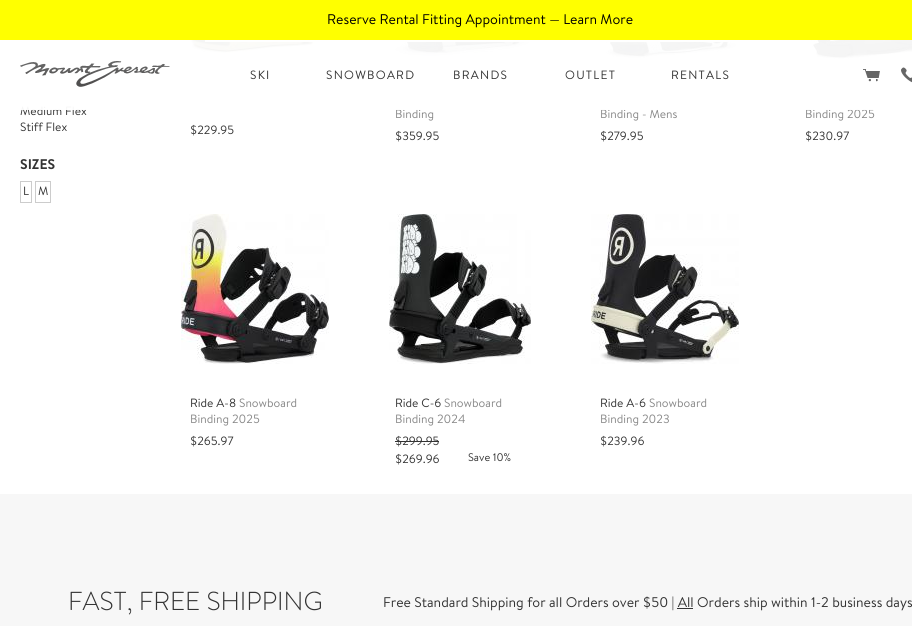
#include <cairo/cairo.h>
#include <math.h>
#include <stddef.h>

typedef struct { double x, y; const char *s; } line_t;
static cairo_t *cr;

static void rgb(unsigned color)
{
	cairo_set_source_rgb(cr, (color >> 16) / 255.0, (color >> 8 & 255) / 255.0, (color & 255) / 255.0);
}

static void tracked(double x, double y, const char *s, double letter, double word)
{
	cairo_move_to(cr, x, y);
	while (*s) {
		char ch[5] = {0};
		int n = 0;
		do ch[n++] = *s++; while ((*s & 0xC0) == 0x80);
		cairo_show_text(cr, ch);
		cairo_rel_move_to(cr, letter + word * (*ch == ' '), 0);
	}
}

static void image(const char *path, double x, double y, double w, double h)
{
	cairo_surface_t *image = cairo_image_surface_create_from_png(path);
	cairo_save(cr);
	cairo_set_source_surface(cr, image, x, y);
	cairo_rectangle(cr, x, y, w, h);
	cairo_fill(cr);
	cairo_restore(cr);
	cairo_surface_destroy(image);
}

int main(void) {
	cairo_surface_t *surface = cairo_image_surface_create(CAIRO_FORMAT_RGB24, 912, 626);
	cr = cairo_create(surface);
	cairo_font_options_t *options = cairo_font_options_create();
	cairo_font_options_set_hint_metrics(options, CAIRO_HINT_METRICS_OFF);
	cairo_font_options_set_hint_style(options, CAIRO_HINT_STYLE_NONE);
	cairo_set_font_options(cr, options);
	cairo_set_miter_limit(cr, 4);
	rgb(0xf7f7f7);
	cairo_paint(cr);
	rgb(0xffff00);
	cairo_rectangle(cr, 0, 0, 912, 40);
	cairo_fill(cr);
	rgb(0xffffff);
	cairo_rectangle(cr, 0, 40, 912, 454);
	cairo_fill(cr);
	cairo_rectangle(cr, 20.5, 181.5, 11, 21);
	rgb(0xcccccc);
	cairo_set_line_width(cr, 1);
	cairo_stroke(cr);
	cairo_rectangle(cr, 35.5, 181.5, 15, 21);
	cairo_stroke(cr);
	image("img/4.png", 180, 40, 150, 13);
	image("img/5.png", 386, 42, 148, 16);
	image("img/6.png", 590, 42, 150, 17);
	image("img/7.png", 795, 40, 117, 19);
	image("img/8.png", 181, 214, 148, 150);
	image("img/9.png", 389, 214, 142, 150);
	rgb(0x333333);
	cairo_rectangle(cr, 395, 441, 44, 1);
	cairo_fill(cr);
	image("img/10.png", 591, 214, 148, 150);
	cairo_rectangle(cr, 677, 608, 16, 1);
	cairo_fill(cr);
	cairo_select_font_face(cr, "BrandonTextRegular", CAIRO_FONT_SLANT_NORMAL, CAIRO_FONT_WEIGHT_NORMAL);
	cairo_set_font_size(cr, 14);
	rgb(0x000000);
	cairo_move_to(cr, 327, 24);
	cairo_show_text(cr, "Reserve Rental Fitting Appointment — Learn More");
	cairo_set_font_size(cr, 12);
	rgb(0x333333);
	cairo_move_to(cr, 20, 115);
	cairo_show_text(cr, "Medium Flex");
	cairo_move_to(cr, 20, 131);
	cairo_show_text(cr, "Stiff Flex");
	cairo_select_font_face(cr, "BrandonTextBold", CAIRO_FONT_SLANT_NORMAL, CAIRO_FONT_WEIGHT_BOLD);
	cairo_set_font_size(cr, 14);
	cairo_move_to(cr, 20, 169);
	cairo_show_text(cr, "SIZES");
	cairo_select_font_face(cr, "BrandonTextRegular", CAIRO_FONT_SLANT_NORMAL, CAIRO_FONT_WEIGHT_NORMAL);
	cairo_set_font_size(cr, 12);
	{
		static const line_t items[] = {
			{23, 195, "L"},
			{38, 195, "M"},
			{190, 134, "$229.95"},
		};
		for (size_t i = 0; i < sizeof items / sizeof *items; i++) {
			cairo_move_to(cr, items[i].x, items[i].y);
			cairo_show_text(cr, items[i].s);
		}
	}
	rgb(0x888888);
	cairo_move_to(cr, 395, 118);
	cairo_show_text(cr, "Binding");
	rgb(0x333333);
	cairo_move_to(cr, 395, 140);
	cairo_show_text(cr, "$359.95");
	rgb(0x888888);
	cairo_move_to(cr, 600, 118);
	cairo_show_text(cr, "Binding - Mens");
	rgb(0x333333);
	cairo_move_to(cr, 600, 140);
	cairo_show_text(cr, "$279.95");
	rgb(0x888888);
	cairo_move_to(cr, 805, 118);
	cairo_show_text(cr, "Binding 2025");
	cairo_set_source_rgba(cr, 1, 1, 1, 0.95);
	cairo_rectangle(cr, 21, 40, 891, 70);
	cairo_fill(cr);
	image("img/3.png", 901, 67, 11, 16);
	image("img/2.png", 863, 69, 17, 13);
	rgb(0x333333);
	{
		static const line_t items[] = {
			{671, 79, "RENTALS"},
			{565, 79, "OUTLET"},
			{453, 79, "BRANDS"},
			{326, 79, "SNOWBOARD"},
			{250, 79, "SKI"},
		};
		for (size_t i = 0; i < sizeof items / sizeof *items; i++) {
			tracked(items[i].x, items[i].y, items[i].s, 1.25, 0);
		}
	}
	rgb(0xffffff);
	cairo_rectangle(cr, 205, 40, 110, 2);
	cairo_fill(cr);
	image("img/1.png", 20, 61, 150, 26);
	rgb(0x333333);
	cairo_move_to(cr, 805, 140);
	cairo_show_text(cr, "$230.97");
	cairo_move_to(cr, 190, 407);
	cairo_show_text(cr, "Ride A-8");
	rgb(0x888888);
	cairo_move_to(cr, 239, 407);
	cairo_show_text(cr, "Snowboard");
	cairo_move_to(cr, 190, 423);
	cairo_show_text(cr, "Binding 2025");
	rgb(0x333333);
	cairo_move_to(cr, 190, 445);
	cairo_show_text(cr, "$265.97");
	cairo_move_to(cr, 395, 407);
	cairo_show_text(cr, "Ride C-6");
	rgb(0x888888);
	cairo_move_to(cr, 444, 407);
	cairo_show_text(cr, "Snowboard");
	cairo_move_to(cr, 395, 423);
	cairo_show_text(cr, "Binding 2024");
	rgb(0x333333);
	cairo_move_to(cr, 395, 445);
	cairo_show_text(cr, "$299.95");
	cairo_move_to(cr, 395, 463);
	cairo_show_text(cr, "$269.96");
	cairo_set_font_size(cr, 11);
	cairo_move_to(cr, 468, 461);
	cairo_show_text(cr, "Save 10%");
	cairo_set_font_size(cr, 12);
	cairo_move_to(cr, 600, 407);
	cairo_show_text(cr, "Ride A-6");
	rgb(0x888888);
	cairo_move_to(cr, 649, 407);
	cairo_show_text(cr, "Snowboard");
	cairo_move_to(cr, 600, 423);
	cairo_show_text(cr, "Binding 2023");
	rgb(0x333333);
	cairo_move_to(cr, 600, 445);
	cairo_show_text(cr, "$239.96");
	cairo_select_font_face(cr, "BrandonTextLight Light", CAIRO_FONT_SLANT_NORMAL, CAIRO_FONT_WEIGHT_NORMAL);
	cairo_set_font_size(cr, 26);
	cairo_move_to(cr, 68, 610);
	cairo_show_text(cr, "FAST, FREE SHIPPING");
	cairo_select_font_face(cr, "BrandonTextRegular", CAIRO_FONT_SLANT_NORMAL, CAIRO_FONT_WEIGHT_NORMAL);
	cairo_set_font_size(cr, 14);
	cairo_move_to(cr, 383, 607);
	cairo_show_text(cr, "Free Standard Shipping for all Orders over $50 | All Orders ship within 1-2 business days");
	cairo_surface_write_to_png(surface, "page.png");
	cairo_font_options_destroy(options);
	cairo_destroy(cr);
	cairo_surface_destroy(surface);
	return 0;
}
